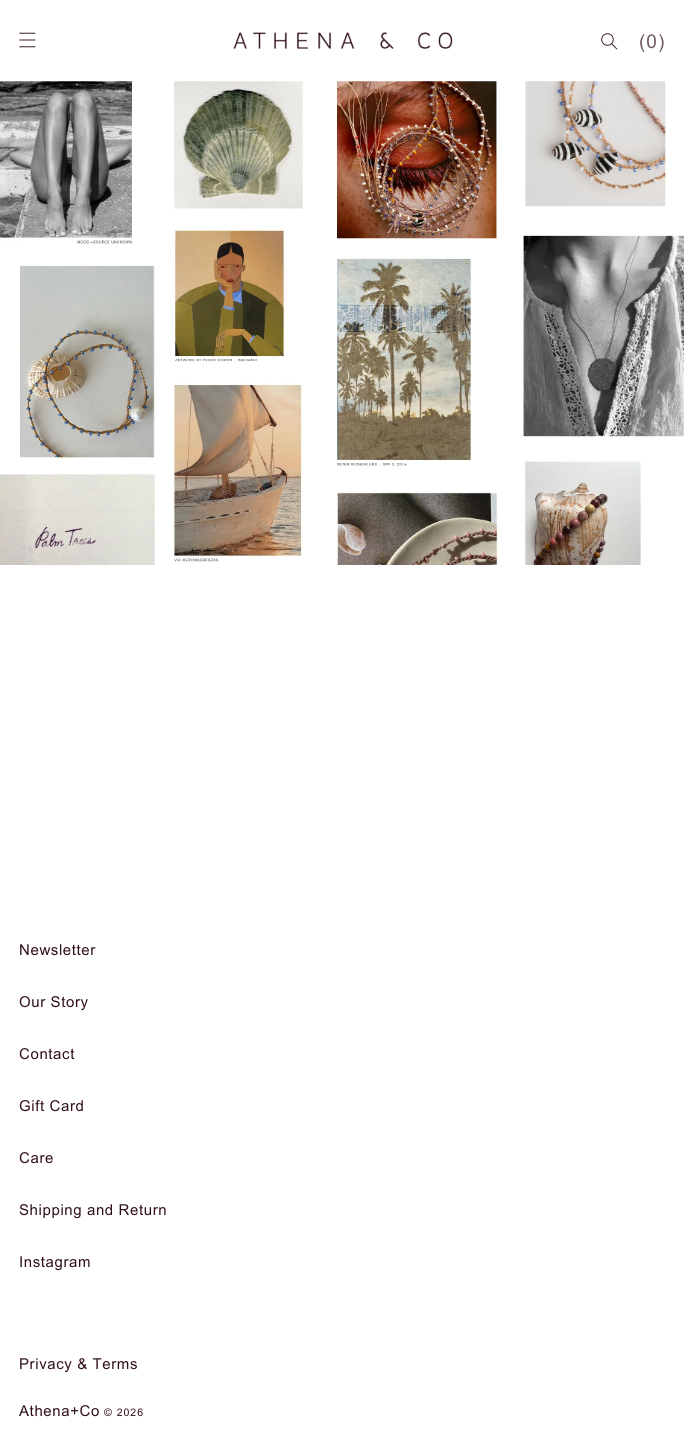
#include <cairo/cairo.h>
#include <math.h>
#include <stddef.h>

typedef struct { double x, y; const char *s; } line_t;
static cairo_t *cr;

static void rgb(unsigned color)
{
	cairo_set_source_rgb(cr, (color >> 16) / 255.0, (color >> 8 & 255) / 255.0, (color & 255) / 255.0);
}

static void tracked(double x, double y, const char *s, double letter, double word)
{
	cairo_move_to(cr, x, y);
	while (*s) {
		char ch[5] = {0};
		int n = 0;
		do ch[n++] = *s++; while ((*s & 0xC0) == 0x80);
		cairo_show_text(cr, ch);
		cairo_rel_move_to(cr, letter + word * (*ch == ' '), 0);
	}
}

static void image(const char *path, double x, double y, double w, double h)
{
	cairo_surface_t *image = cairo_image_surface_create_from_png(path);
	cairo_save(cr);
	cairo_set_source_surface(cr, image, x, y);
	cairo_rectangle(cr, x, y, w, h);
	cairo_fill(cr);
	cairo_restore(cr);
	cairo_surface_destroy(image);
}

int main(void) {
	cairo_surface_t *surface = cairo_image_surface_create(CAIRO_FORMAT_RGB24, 684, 1442);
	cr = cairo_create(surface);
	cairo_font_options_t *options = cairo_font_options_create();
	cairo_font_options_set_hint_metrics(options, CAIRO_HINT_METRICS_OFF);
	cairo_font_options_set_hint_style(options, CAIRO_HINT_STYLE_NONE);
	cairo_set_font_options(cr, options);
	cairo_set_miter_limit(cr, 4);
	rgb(0xffffff);
	cairo_paint(cr);
	image("img/1.png", 19, 32, 17, 16);
	image("img/2.png", 233, 32, 220, 17);
	image("img/3.png", 601, 33, 17, 17);
	image("img/4.png", 0, 81, 684, 484);
	cairo_select_font_face(cr, "Arial", CAIRO_FONT_SLANT_NORMAL, CAIRO_FONT_WEIGHT_NORMAL);
	cairo_set_font_size(cr, 19);
	rgb(0x6f585f);
	tracked(639, 48, "(0)", 1, 0);
	cairo_set_font_size(cr, 15);
	rgb(0x31101b);
	{
		static const line_t items[] = {
			{19, 955, "Newsletter"},
			{19, 1007, "Our Story"},
			{19, 1059, "Contact"},
			{19, 1111, "Gift Card"},
			{19, 1163, "Care"},
			{19, 1215, "Shipping and Return"},
			{19, 1267, "Instagram"},
			{19, 1369, "Privacy & Terms"},
			{19, 1416, "Athena+Co"},
		};
		for (size_t i = 0; i < sizeof items / sizeof *items; i++) {
			tracked(items[i].x, items[i].y, items[i].s, 0.6, 0);
		}
	}
	cairo_set_font_size(cr, 10.5);
	tracked(104, 1416, "© 2026", 1, 0);
	cairo_surface_write_to_png(surface, "page.png");
	cairo_font_options_destroy(options);
	cairo_destroy(cr);
	cairo_surface_destroy(surface);
	return 0;
}
